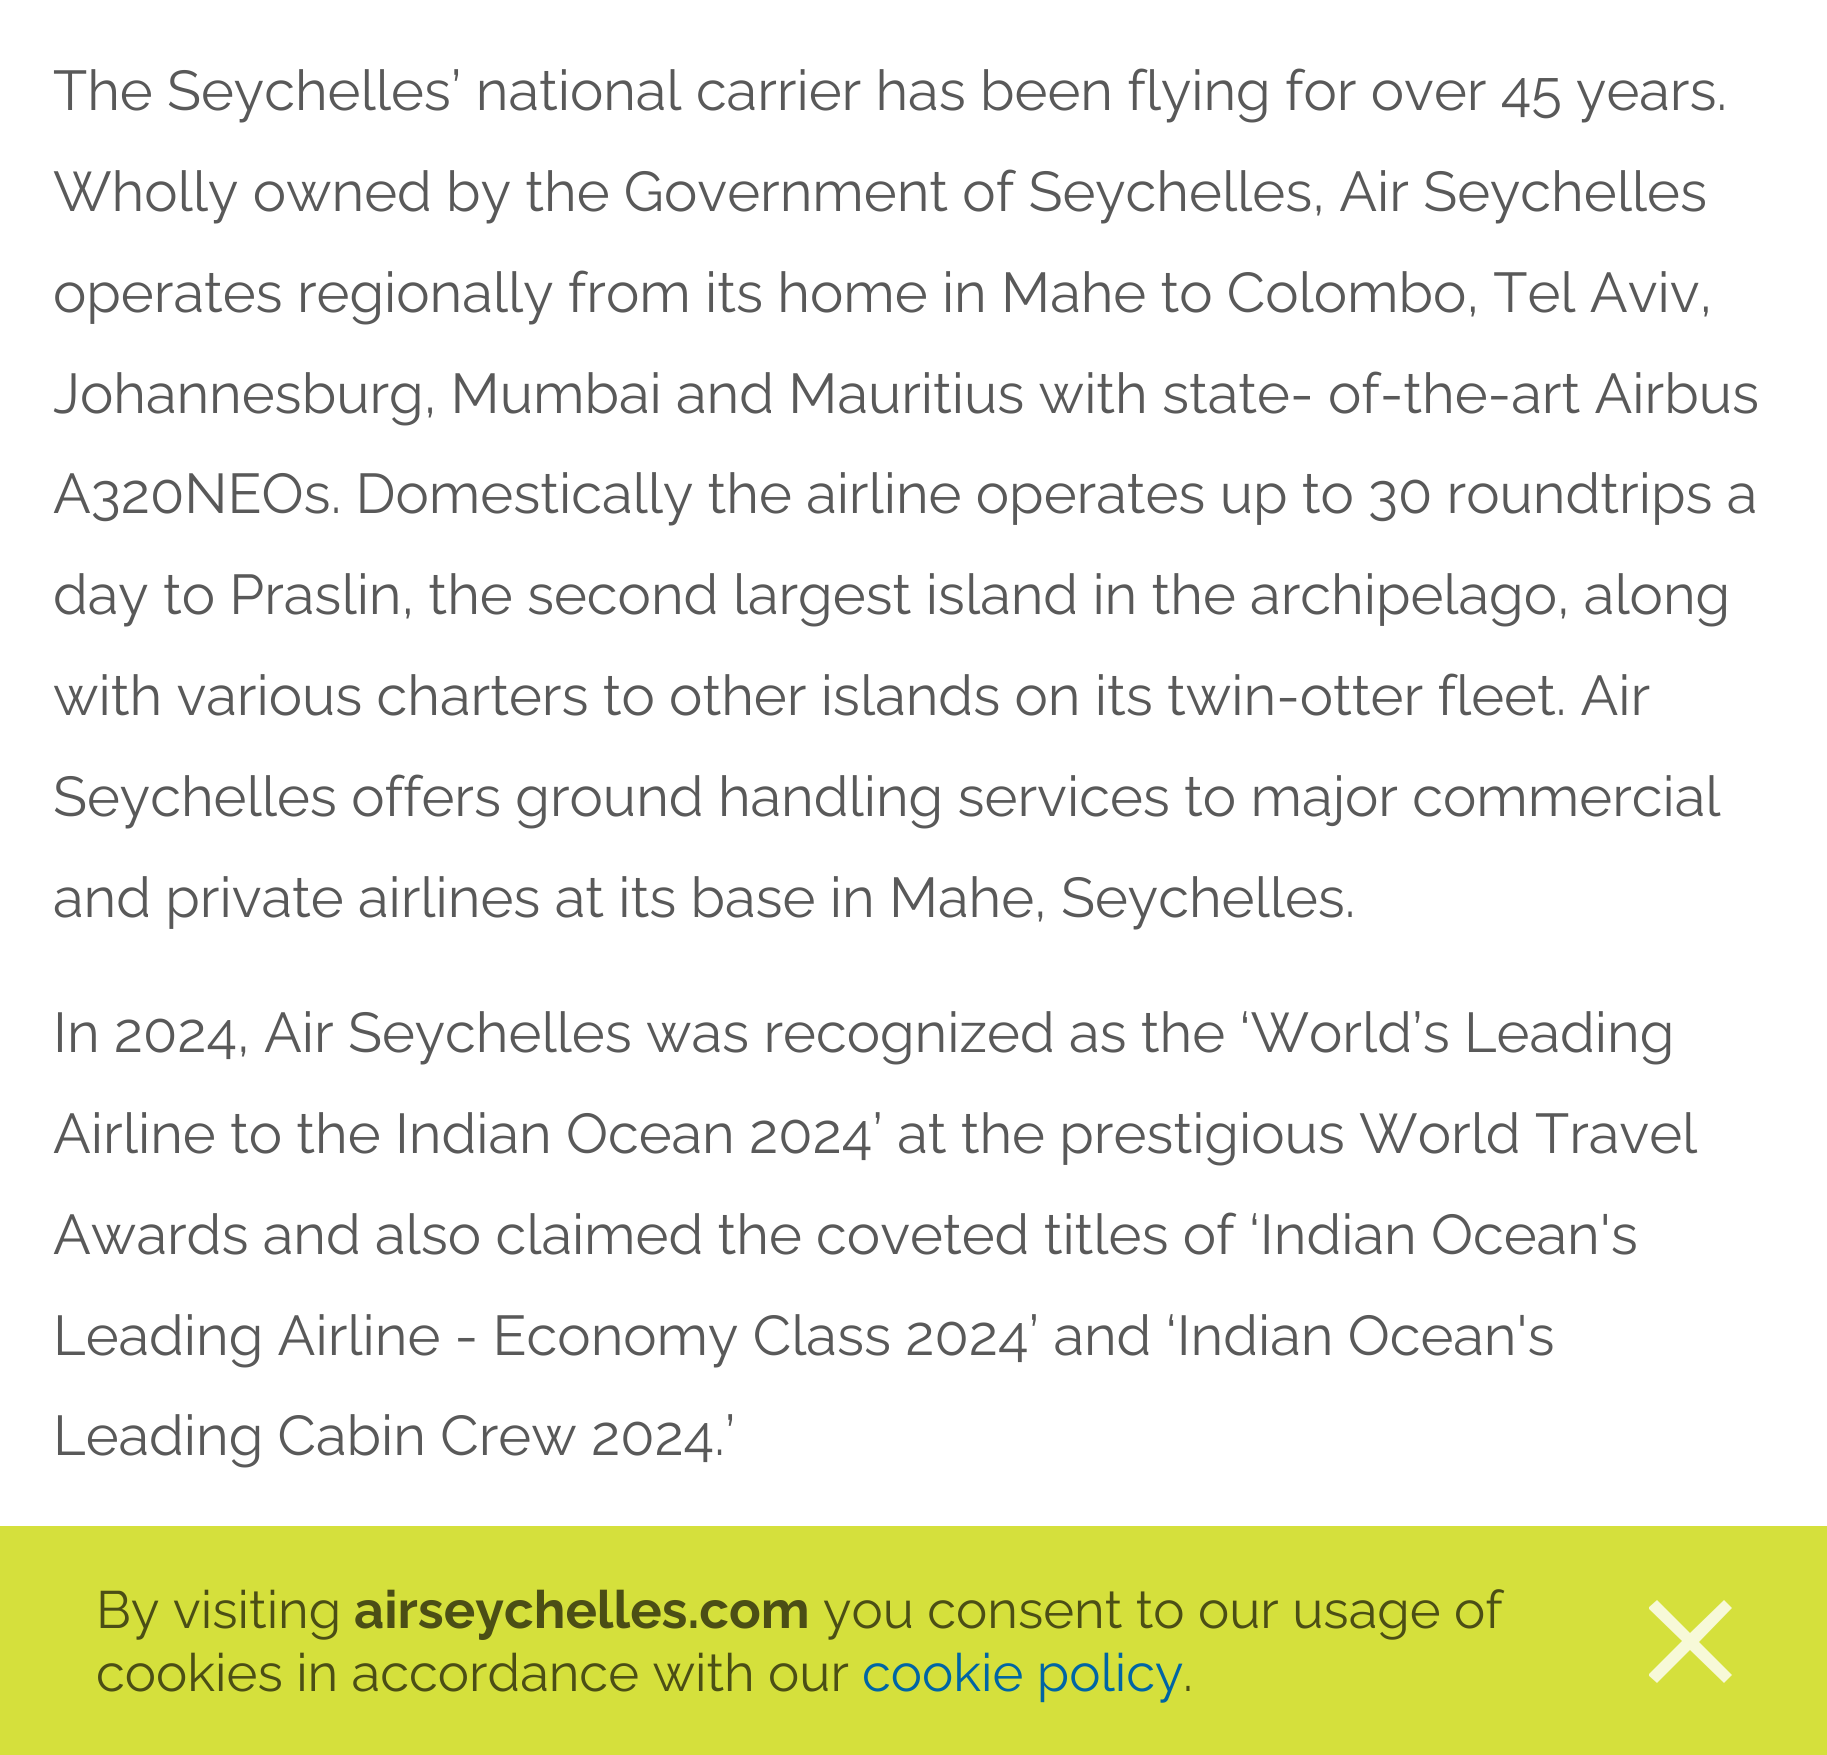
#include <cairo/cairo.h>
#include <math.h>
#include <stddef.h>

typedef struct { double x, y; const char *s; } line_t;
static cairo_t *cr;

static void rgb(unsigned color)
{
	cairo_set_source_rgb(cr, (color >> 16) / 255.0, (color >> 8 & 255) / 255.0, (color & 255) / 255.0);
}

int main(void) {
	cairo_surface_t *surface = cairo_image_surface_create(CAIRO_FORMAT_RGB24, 1827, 1755);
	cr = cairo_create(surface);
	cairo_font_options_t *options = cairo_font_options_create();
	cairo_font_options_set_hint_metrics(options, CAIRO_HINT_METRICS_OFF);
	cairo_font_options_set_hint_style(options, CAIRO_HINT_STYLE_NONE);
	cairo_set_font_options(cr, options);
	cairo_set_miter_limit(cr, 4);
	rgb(0xffffff);
	cairo_paint(cr);
	rgb(0xd5e03c);
	cairo_rectangle(cr, 0, 1526, 1827, 229);
	cairo_fill(cr);
	cairo_save(cr);
	cairo_rectangle(cr, 1649, 1600, 84, 84);
	cairo_clip(cr);
	rgb(0xf7f9d8);
	cairo_new_path(cr);
	cairo_move_to(cr, 1732, 1608);
	cairo_line_to(cr, 1724, 1600);
	cairo_line_to(cr, 1690, 1633);
	cairo_line_to(cr, 1657, 1600);
	cairo_line_to(cr, 1648, 1608);
	cairo_line_to(cr, 1682, 1641);
	cairo_line_to(cr, 1648, 1675);
	cairo_line_to(cr, 1657, 1683);
	cairo_line_to(cr, 1690, 1650);
	cairo_line_to(cr, 1724, 1683);
	cairo_line_to(cr, 1732, 1675);
	cairo_line_to(cr, 1699, 1642);
	cairo_close_path(cr);
	cairo_fill(cr);
	cairo_restore(cr);
	cairo_select_font_face(cr, "Raleway", CAIRO_FONT_SLANT_NORMAL, CAIRO_FONT_WEIGHT_NORMAL);
	cairo_set_font_size(cr, 56);
	rgb(0x595959);
	{
		static const line_t items[] = {
			{53, 110, "The Seychelles’ national carrier has been flying for over 45 years."},
			{53, 211, "Wholly owned by the Government of Seychelles, Air Seychelles"},
			{53, 312, "operates regionally from its home in Mahe to Colombo, Tel Aviv,"},
			{53, 413, "Johannesburg, Mumbai and Mauritius with state- of-the-art Airbus"},
			{53, 513, "A320NEOs. Domestically the airline operates up to 30 roundtrips a"},
			{53, 614, "day to Praslin, the second largest island in the archipelago, along"},
			{53, 715, "with various charters to other islands on its twin-otter fleet. Air"},
			{53, 816, "Seychelles offers ground handling services to major commercial"},
			{53, 917, "and private airlines at its base in Mahe, Seychelles."},
			{53, 1052, "In 2024, Air Seychelles was recognized as the ‘World’s Leading"},
			{53, 1153, "Airline to the Indian Ocean 2024’ at the prestigious World Travel"},
			{53, 1254, "Awards and also claimed the coveted titles of ‘Indian Ocean's"},
			{53, 1355, "Leading Airline - Economy Class 2024’ and ‘Indian Ocean's"},
			{53, 1455, "Leading Cabin Crew 2024.’"},
		};
		for (size_t i = 0; i < sizeof items / sizeof *items; i++) {
			cairo_move_to(cr, items[i].x, items[i].y);
			cairo_show_text(cr, items[i].s);
		}
	}
	cairo_set_font_size(cr, 52.5);
	rgb(0x4b4e15);
	cairo_move_to(cr, 96, 1628);
	cairo_show_text(cr, "By visiting");
	cairo_select_font_face(cr, "Raleway", CAIRO_FONT_SLANT_NORMAL, CAIRO_FONT_WEIGHT_BOLD);
	cairo_move_to(cr, 354, 1628);
	cairo_show_text(cr, "airseychelles.com");
	cairo_select_font_face(cr, "Raleway", CAIRO_FONT_SLANT_NORMAL, CAIRO_FONT_WEIGHT_NORMAL);
	cairo_move_to(cr, 823, 1628);
	cairo_show_text(cr, "you consent to our usage of");
	cairo_move_to(cr, 96, 1691);
	cairo_show_text(cr, "cookies in accordance with our");
	rgb(0x0065a4);
	cairo_move_to(cr, 862, 1691);
	cairo_show_text(cr, "cookie policy");
	rgb(0x4b4e15);
	cairo_move_to(cr, 1183, 1691);
	cairo_show_text(cr, ".");
	cairo_surface_write_to_png(surface, "page.png");
	cairo_font_options_destroy(options);
	cairo_destroy(cr);
	cairo_surface_destroy(surface);
	return 0;
}
